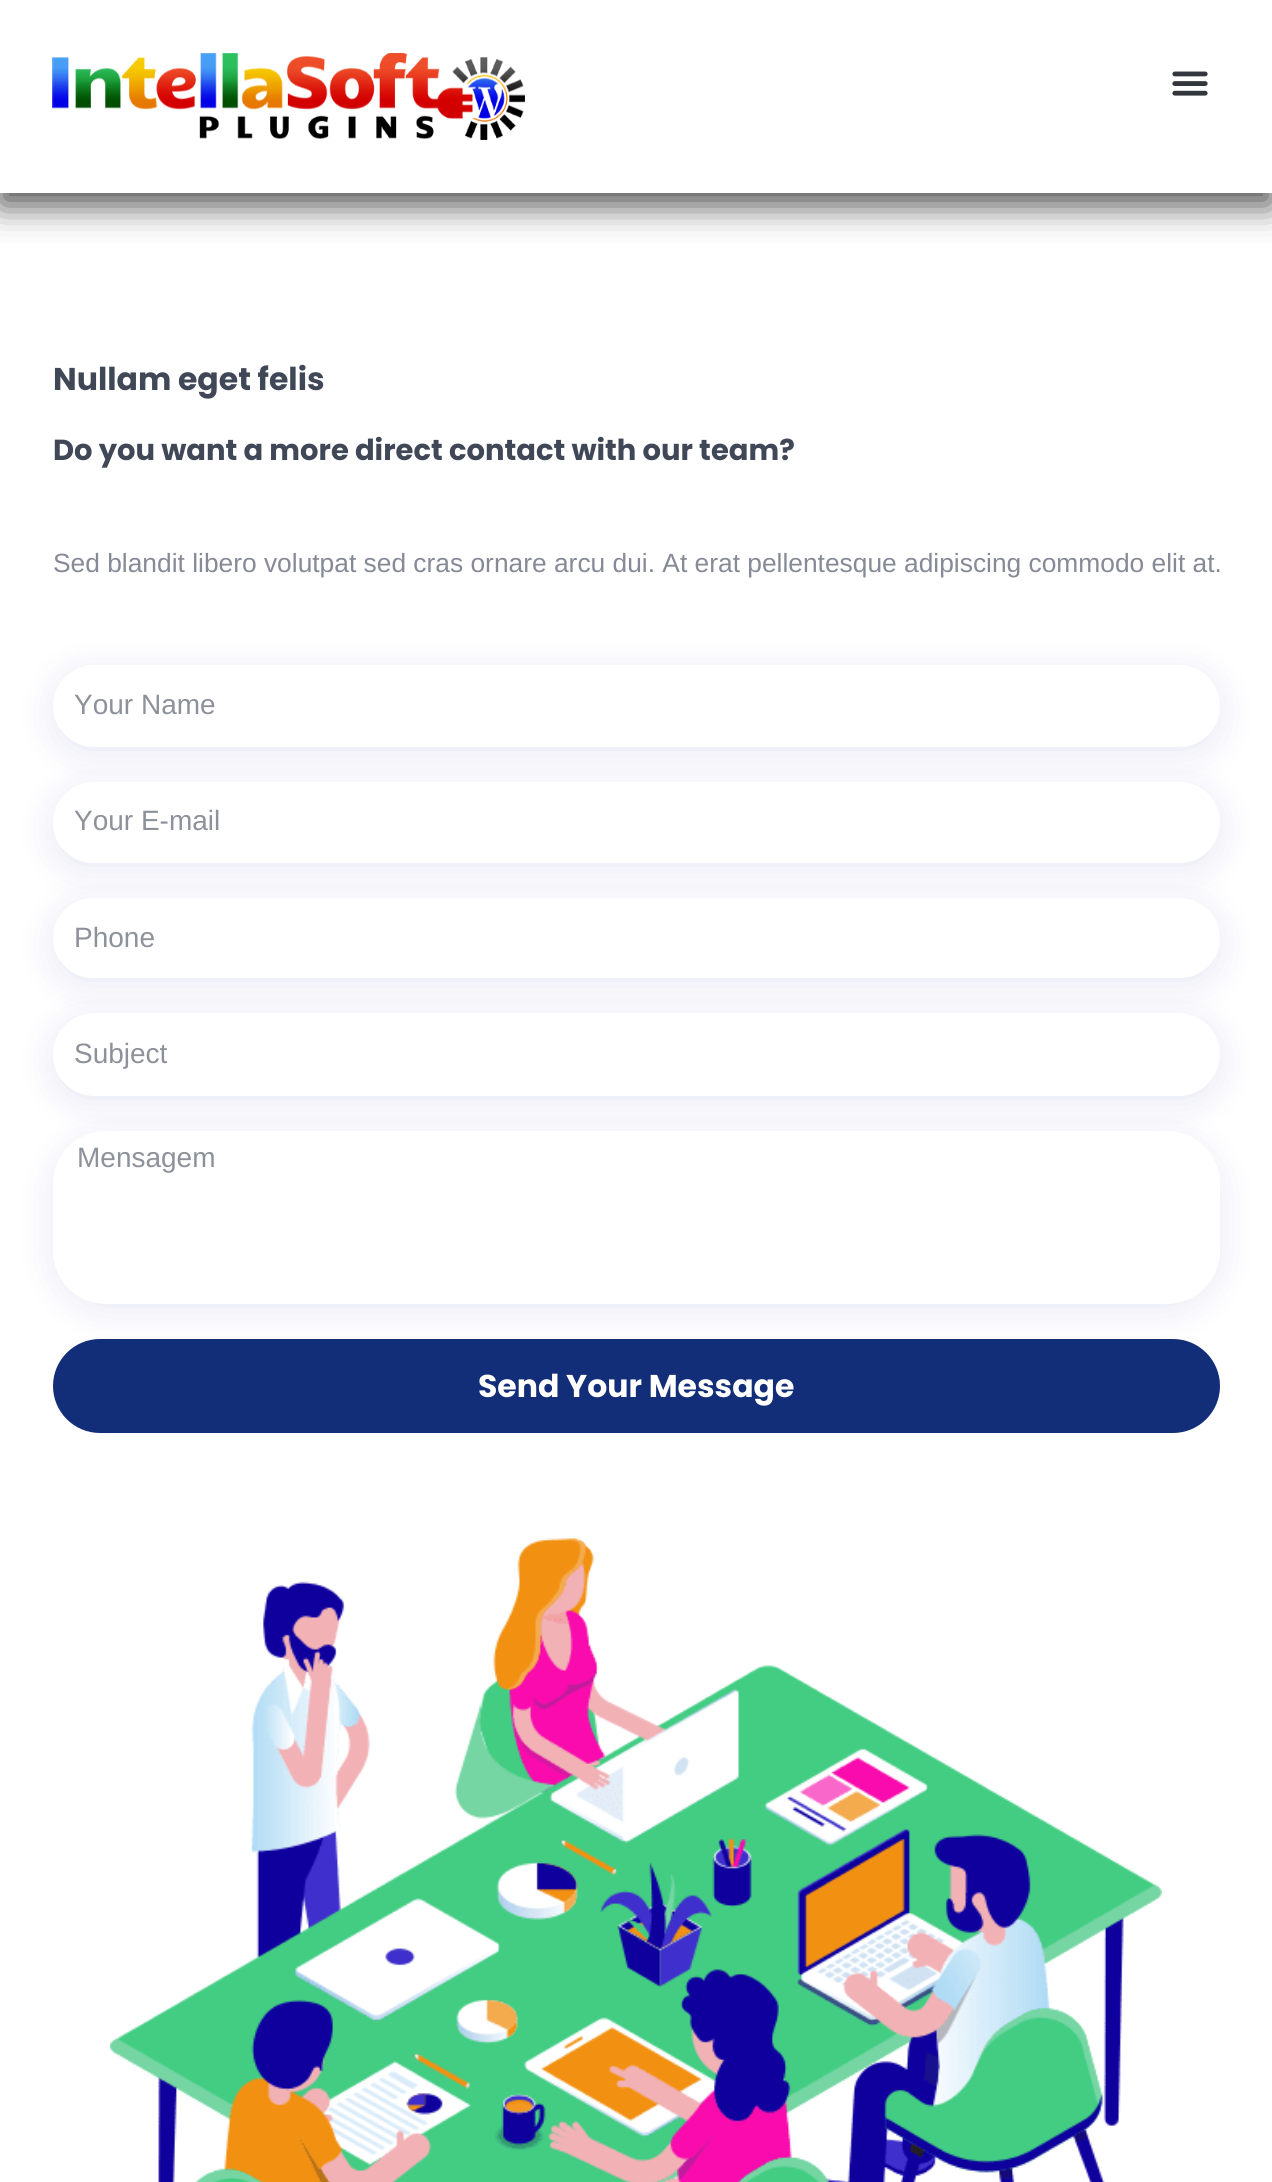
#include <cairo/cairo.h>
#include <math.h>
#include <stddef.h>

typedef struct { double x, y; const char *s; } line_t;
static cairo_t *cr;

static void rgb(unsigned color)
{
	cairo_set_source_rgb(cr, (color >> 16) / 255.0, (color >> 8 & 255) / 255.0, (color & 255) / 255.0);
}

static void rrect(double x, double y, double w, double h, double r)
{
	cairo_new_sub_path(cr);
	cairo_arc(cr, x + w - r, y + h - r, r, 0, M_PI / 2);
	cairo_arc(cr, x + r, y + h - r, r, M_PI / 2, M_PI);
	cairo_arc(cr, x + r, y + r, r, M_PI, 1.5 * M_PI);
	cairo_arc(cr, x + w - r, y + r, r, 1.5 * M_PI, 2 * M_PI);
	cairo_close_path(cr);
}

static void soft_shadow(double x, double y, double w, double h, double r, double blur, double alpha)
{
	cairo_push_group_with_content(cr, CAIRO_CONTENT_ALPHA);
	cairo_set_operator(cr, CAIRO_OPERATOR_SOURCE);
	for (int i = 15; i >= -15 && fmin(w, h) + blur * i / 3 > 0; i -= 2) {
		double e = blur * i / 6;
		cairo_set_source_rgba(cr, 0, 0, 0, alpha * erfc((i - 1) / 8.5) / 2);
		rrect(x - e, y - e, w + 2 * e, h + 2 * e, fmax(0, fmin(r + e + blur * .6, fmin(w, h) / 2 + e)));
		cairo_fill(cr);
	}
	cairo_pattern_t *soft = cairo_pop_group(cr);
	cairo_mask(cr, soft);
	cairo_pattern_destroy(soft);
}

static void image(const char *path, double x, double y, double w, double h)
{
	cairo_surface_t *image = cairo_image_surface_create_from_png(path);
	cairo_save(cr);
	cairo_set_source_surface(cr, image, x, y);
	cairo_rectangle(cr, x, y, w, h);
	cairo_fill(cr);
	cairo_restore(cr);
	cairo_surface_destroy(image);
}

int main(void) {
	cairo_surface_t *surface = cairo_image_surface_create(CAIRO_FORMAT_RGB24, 1272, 2182);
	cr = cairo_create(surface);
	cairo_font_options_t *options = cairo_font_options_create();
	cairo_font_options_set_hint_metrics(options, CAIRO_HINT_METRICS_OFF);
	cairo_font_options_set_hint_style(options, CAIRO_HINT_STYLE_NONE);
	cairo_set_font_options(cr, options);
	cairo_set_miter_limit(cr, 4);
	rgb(0xffffff);
	cairo_paint(cr);
	rgb(0x000000);
	soft_shadow(0, 12, 1272, 193, 0, 17.5, 0.7);
	rgb(0xffffff);
	cairo_rectangle(cr, 0, 0, 1272, 193);
	cairo_fill(cr);
	image("img/1.png", 52, 53, 473, 87);
	image("img/2.png", 1172, 71, 36, 25);
	rgb(0x12159a);
	soft_shadow(53, 672, 1167, 82, 41, 17.5, 0.1);
	rgb(0xffffff);
	rrect(53, 665, 1167, 82, 41);
	cairo_fill(cr);
	rgb(0x12159a);
	soft_shadow(53, 789, 1167, 81, 40.5, 17.5, 0.1);
	rgb(0xffffff);
	rrect(53, 782, 1167, 81, 40.5);
	cairo_fill(cr);
	rgb(0x12159a);
	soft_shadow(53, 905, 1167, 80, 40, 17.5, 0.1);
	rgb(0xffffff);
	rrect(53, 898, 1167, 80, 40);
	cairo_fill(cr);
	rgb(0x12159a);
	soft_shadow(53, 1020, 1167, 83, 41.5, 17.5, 0.1);
	rgb(0xffffff);
	rrect(53, 1013, 1167, 83, 41.5);
	cairo_fill(cr);
	rgb(0x12159a);
	soft_shadow(53, 1138, 1167, 173, 53, 17.5, 0.1);
	rgb(0xffffff);
	rrect(53, 1131, 1167, 173, 53);
	cairo_fill(cr);
	rgb(0x132e78);
	rrect(55.5, 1341.5, 1162, 89, 44.5);
	cairo_fill_preserve(cr);
	cairo_set_line_width(cr, 5);
	cairo_stroke(cr);
	image("img/3.png", 110, 1538, 1052, 644);
	cairo_select_font_face(cr, "Poppins", CAIRO_FONT_SLANT_NORMAL, CAIRO_FONT_WEIGHT_BOLD);
	cairo_set_font_size(cr, 31.5);
	rgb(0x404757);
	cairo_move_to(cr, 53, 390);
	cairo_show_text(cr, "Nullam eget felis");
	cairo_set_font_size(cr, 29);
	cairo_move_to(cr, 53, 460);
	cairo_show_text(cr, "Do you want a more direct contact with our team?");
	cairo_select_font_face(cr, "Liberation Sans", CAIRO_FONT_SLANT_NORMAL, CAIRO_FONT_WEIGHT_NORMAL);
	cairo_set_font_size(cr, 26.35);
	rgb(0x858a96);
	cairo_move_to(cr, 53, 572);
	cairo_show_text(cr, "Sed blandit libero volutpat sed cras ornare arcu dui. At erat pellentesque adipiscing commodo elit at.");
	cairo_set_font_size(cr, 28);
	rgb(0x8c919a);
	{
		static const line_t items[] = {
			{74, 714, "Your Name"},
			{74, 830, "Your E-mail"},
			{74, 947, "Phone"},
			{74, 1063, "Subject"},
			{77, 1167, "Mensagem"},
		};
		for (size_t i = 0; i < sizeof items / sizeof *items; i++) {
			cairo_move_to(cr, items[i].x, items[i].y);
			cairo_show_text(cr, items[i].s);
		}
	}
	cairo_select_font_face(cr, "Poppins", CAIRO_FONT_SLANT_NORMAL, CAIRO_FONT_WEIGHT_BOLD);
	cairo_set_font_size(cr, 31.5);
	rgb(0xffffff);
	cairo_move_to(cr, 478, 1397);
	cairo_show_text(cr, "Send Your Message");
	cairo_surface_write_to_png(surface, "page.png");
	cairo_font_options_destroy(options);
	cairo_destroy(cr);
	cairo_surface_destroy(surface);
	return 0;
}
